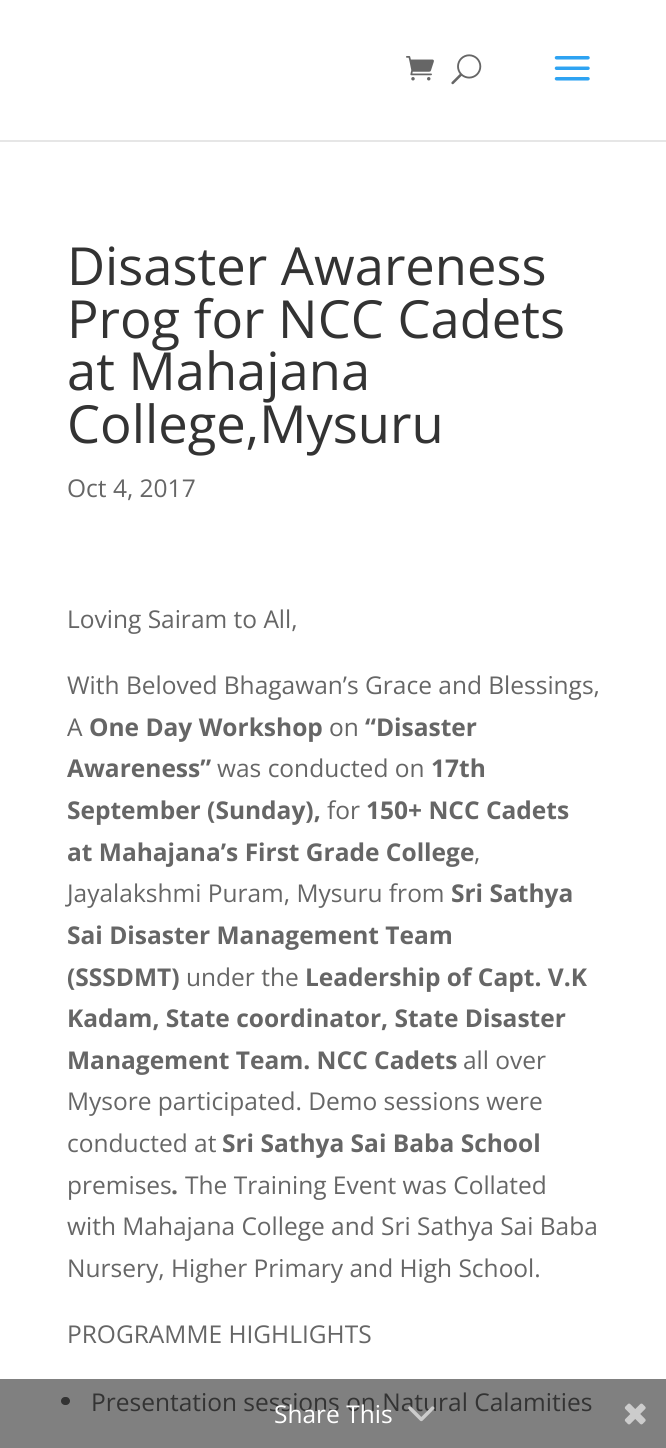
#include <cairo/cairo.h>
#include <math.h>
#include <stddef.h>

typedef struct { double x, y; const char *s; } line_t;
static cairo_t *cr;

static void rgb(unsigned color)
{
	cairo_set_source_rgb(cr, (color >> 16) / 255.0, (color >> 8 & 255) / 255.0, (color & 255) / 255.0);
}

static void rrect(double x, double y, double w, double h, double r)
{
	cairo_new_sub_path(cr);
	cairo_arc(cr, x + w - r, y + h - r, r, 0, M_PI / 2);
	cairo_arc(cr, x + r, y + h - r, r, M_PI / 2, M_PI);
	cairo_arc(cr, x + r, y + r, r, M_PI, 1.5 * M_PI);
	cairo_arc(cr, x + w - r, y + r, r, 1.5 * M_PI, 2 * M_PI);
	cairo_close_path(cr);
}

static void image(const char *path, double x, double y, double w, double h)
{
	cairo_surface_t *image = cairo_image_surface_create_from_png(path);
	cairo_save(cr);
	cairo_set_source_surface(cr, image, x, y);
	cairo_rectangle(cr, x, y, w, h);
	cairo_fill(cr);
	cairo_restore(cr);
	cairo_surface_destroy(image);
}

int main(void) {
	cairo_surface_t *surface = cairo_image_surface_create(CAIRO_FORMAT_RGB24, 666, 1448);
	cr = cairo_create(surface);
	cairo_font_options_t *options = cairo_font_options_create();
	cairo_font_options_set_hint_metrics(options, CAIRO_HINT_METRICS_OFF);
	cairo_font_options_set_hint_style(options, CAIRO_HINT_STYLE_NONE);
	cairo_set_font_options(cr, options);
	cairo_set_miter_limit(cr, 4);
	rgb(0xffffff);
	cairo_paint(cr);
	rgb(0x808080);
	cairo_rectangle(cr, 0, 1379, 666, 69);
	cairo_fill(cr);
	rgb(0xe6e6e6);
	cairo_new_path(cr);
	cairo_move_to(cr, 0, 140);
	cairo_line_to(cr, 0, 142);
	cairo_line_to(cr, 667, 142);
	cairo_line_to(cr, 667, 2);
	cairo_line_to(cr, 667, 140);
	cairo_close_path(cr);
	cairo_fill(cr);
	image("img/1.png", 406, 56, 28, 25);
	image("img/2.png", 451, 54, 31, 31);
	image("img/3.png", 554, 56, 36, 25);
	rgb(0x333333);
	rrect(61, 1397, 9, 8, 4);
	cairo_fill(cr);
	image("img/5.png", 624, 1403, 22, 22);
	cairo_select_font_face(cr, "Open Sans", CAIRO_FONT_SLANT_NORMAL, CAIRO_FONT_WEIGHT_NORMAL);
	cairo_set_font_size(cr, 52.5);
	{
		static const line_t items[] = {
			{67, 285, "Disaster Awareness"},
			{67, 338, "Prog for NCC Cadets"},
			{67, 390, "at Mahajana"},
			{67, 443, "College,Mysuru"},
		};
		for (size_t i = 0; i < sizeof items / sizeof *items; i++) {
			cairo_move_to(cr, items[i].x, items[i].y);
			cairo_show_text(cr, items[i].s);
		}
	}
	cairo_set_font_size(cr, 24.5);
	rgb(0x666666);
	{
		static const line_t items[] = {
			{67, 497, "Oct 4, 2017"},
			{67, 628, "Loving Sairam to All,"},
			{67, 694, "With Beloved Bhagawan’s Grace and Blessings,"},
			{67, 736, "A"},
		};
		for (size_t i = 0; i < sizeof items / sizeof *items; i++) {
			cairo_move_to(cr, items[i].x, items[i].y);
			cairo_show_text(cr, items[i].s);
		}
	}
	cairo_select_font_face(cr, "Open Sans", CAIRO_FONT_SLANT_NORMAL, CAIRO_FONT_WEIGHT_BOLD);
	cairo_move_to(cr, 89, 736);
	cairo_show_text(cr, "One Day Workshop");
	cairo_select_font_face(cr, "Open Sans", CAIRO_FONT_SLANT_NORMAL, CAIRO_FONT_WEIGHT_NORMAL);
	cairo_move_to(cr, 329, 736);
	cairo_show_text(cr, "on");
	cairo_select_font_face(cr, "Open Sans", CAIRO_FONT_SLANT_NORMAL, CAIRO_FONT_WEIGHT_BOLD);
	cairo_move_to(cr, 365, 736);
	cairo_show_text(cr, "“Disaster");
	cairo_move_to(cr, 67, 777);
	cairo_show_text(cr, "Awareness”");
	cairo_select_font_face(cr, "Open Sans", CAIRO_FONT_SLANT_NORMAL, CAIRO_FONT_WEIGHT_NORMAL);
	cairo_move_to(cr, 217, 777);
	cairo_show_text(cr, "was conducted on");
	cairo_select_font_face(cr, "Open Sans", CAIRO_FONT_SLANT_NORMAL, CAIRO_FONT_WEIGHT_BOLD);
	cairo_move_to(cr, 431, 777);
	cairo_show_text(cr, "17th");
	cairo_move_to(cr, 67, 819);
	cairo_show_text(cr, "September (Sunday),");
	cairo_select_font_face(cr, "Open Sans", CAIRO_FONT_SLANT_NORMAL, CAIRO_FONT_WEIGHT_NORMAL);
	cairo_move_to(cr, 327, 819);
	cairo_show_text(cr, "for");
	cairo_select_font_face(cr, "Open Sans", CAIRO_FONT_SLANT_NORMAL, CAIRO_FONT_WEIGHT_BOLD);
	cairo_move_to(cr, 366, 819);
	cairo_show_text(cr, "150+ NCC Cadets");
	cairo_move_to(cr, 67, 861);
	cairo_show_text(cr, "at Mahajana’s First Grade College");
	cairo_select_font_face(cr, "Open Sans", CAIRO_FONT_SLANT_NORMAL, CAIRO_FONT_WEIGHT_NORMAL);
	cairo_move_to(cr, 474, 861);
	cairo_show_text(cr, ",");
	cairo_move_to(cr, 67, 902);
	cairo_show_text(cr, "Jayalakshmi Puram, Mysuru from");
	cairo_select_font_face(cr, "Open Sans", CAIRO_FONT_SLANT_NORMAL, CAIRO_FONT_WEIGHT_BOLD);
	{
		static const line_t items[] = {
			{451, 902, "Sri Sathya"},
			{67, 944, "Sai Disaster Management Team"},
			{67, 986, "(SSSDMT)"},
		};
		for (size_t i = 0; i < sizeof items / sizeof *items; i++) {
			cairo_move_to(cr, items[i].x, items[i].y);
			cairo_show_text(cr, items[i].s);
		}
	}
	cairo_select_font_face(cr, "Open Sans", CAIRO_FONT_SLANT_NORMAL, CAIRO_FONT_WEIGHT_NORMAL);
	cairo_move_to(cr, 186, 986);
	cairo_show_text(cr, "under the");
	cairo_select_font_face(cr, "Open Sans", CAIRO_FONT_SLANT_NORMAL, CAIRO_FONT_WEIGHT_BOLD);
	{
		static const line_t items[] = {
			{305, 986, "Leadership of Capt. V.K"},
			{67, 1027, "Kadam, State coordinator, State Disaster"},
			{67, 1069, "Management Team. NCC Cadets"},
		};
		for (size_t i = 0; i < sizeof items / sizeof *items; i++) {
			cairo_move_to(cr, items[i].x, items[i].y);
			cairo_show_text(cr, items[i].s);
		}
	}
	cairo_select_font_face(cr, "Open Sans", CAIRO_FONT_SLANT_NORMAL, CAIRO_FONT_WEIGHT_NORMAL);
	{
		static const line_t items[] = {
			{463, 1069, "all over"},
			{67, 1110, "Mysore participated. Demo sessions were"},
			{67, 1152, "conducted at"},
		};
		for (size_t i = 0; i < sizeof items / sizeof *items; i++) {
			cairo_move_to(cr, items[i].x, items[i].y);
			cairo_show_text(cr, items[i].s);
		}
	}
	cairo_select_font_face(cr, "Open Sans", CAIRO_FONT_SLANT_NORMAL, CAIRO_FONT_WEIGHT_BOLD);
	cairo_move_to(cr, 222, 1152);
	cairo_show_text(cr, "Sri Sathya Sai Baba School");
	cairo_select_font_face(cr, "Open Sans", CAIRO_FONT_SLANT_NORMAL, CAIRO_FONT_WEIGHT_NORMAL);
	cairo_move_to(cr, 67, 1194);
	cairo_show_text(cr, "premises");
	cairo_select_font_face(cr, "Open Sans", CAIRO_FONT_SLANT_NORMAL, CAIRO_FONT_WEIGHT_BOLD);
	cairo_move_to(cr, 171, 1194);
	cairo_show_text(cr, ".");
	cairo_select_font_face(cr, "Open Sans", CAIRO_FONT_SLANT_NORMAL, CAIRO_FONT_WEIGHT_NORMAL);
	{
		static const line_t items[] = {
			{185, 1194, "The Training Event was Collated"},
			{67, 1235, "with Mahajana College and Sri Sathya Sai Baba"},
			{67, 1277, "Nursery, Higher Primary and High School."},
			{67, 1343, "PROGRAMME HIGHLIGHTS"},
		};
		for (size_t i = 0; i < sizeof items / sizeof *items; i++) {
			cairo_move_to(cr, items[i].x, items[i].y);
			cairo_show_text(cr, items[i].s);
		}
	}
	rgb(0x333333);
	cairo_move_to(cr, 91, 1411);
	cairo_show_text(cr, "Presentation sessions on Natural Calamities");
	rgb(0xffffff);
	cairo_move_to(cr, 274, 1423);
	cairo_show_text(cr, "Share This");
	image("img/4.png", 408, 1406, 27, 16);
	cairo_surface_write_to_png(surface, "page.png");
	cairo_font_options_destroy(options);
	cairo_destroy(cr);
	cairo_surface_destroy(surface);
	return 0;
}
